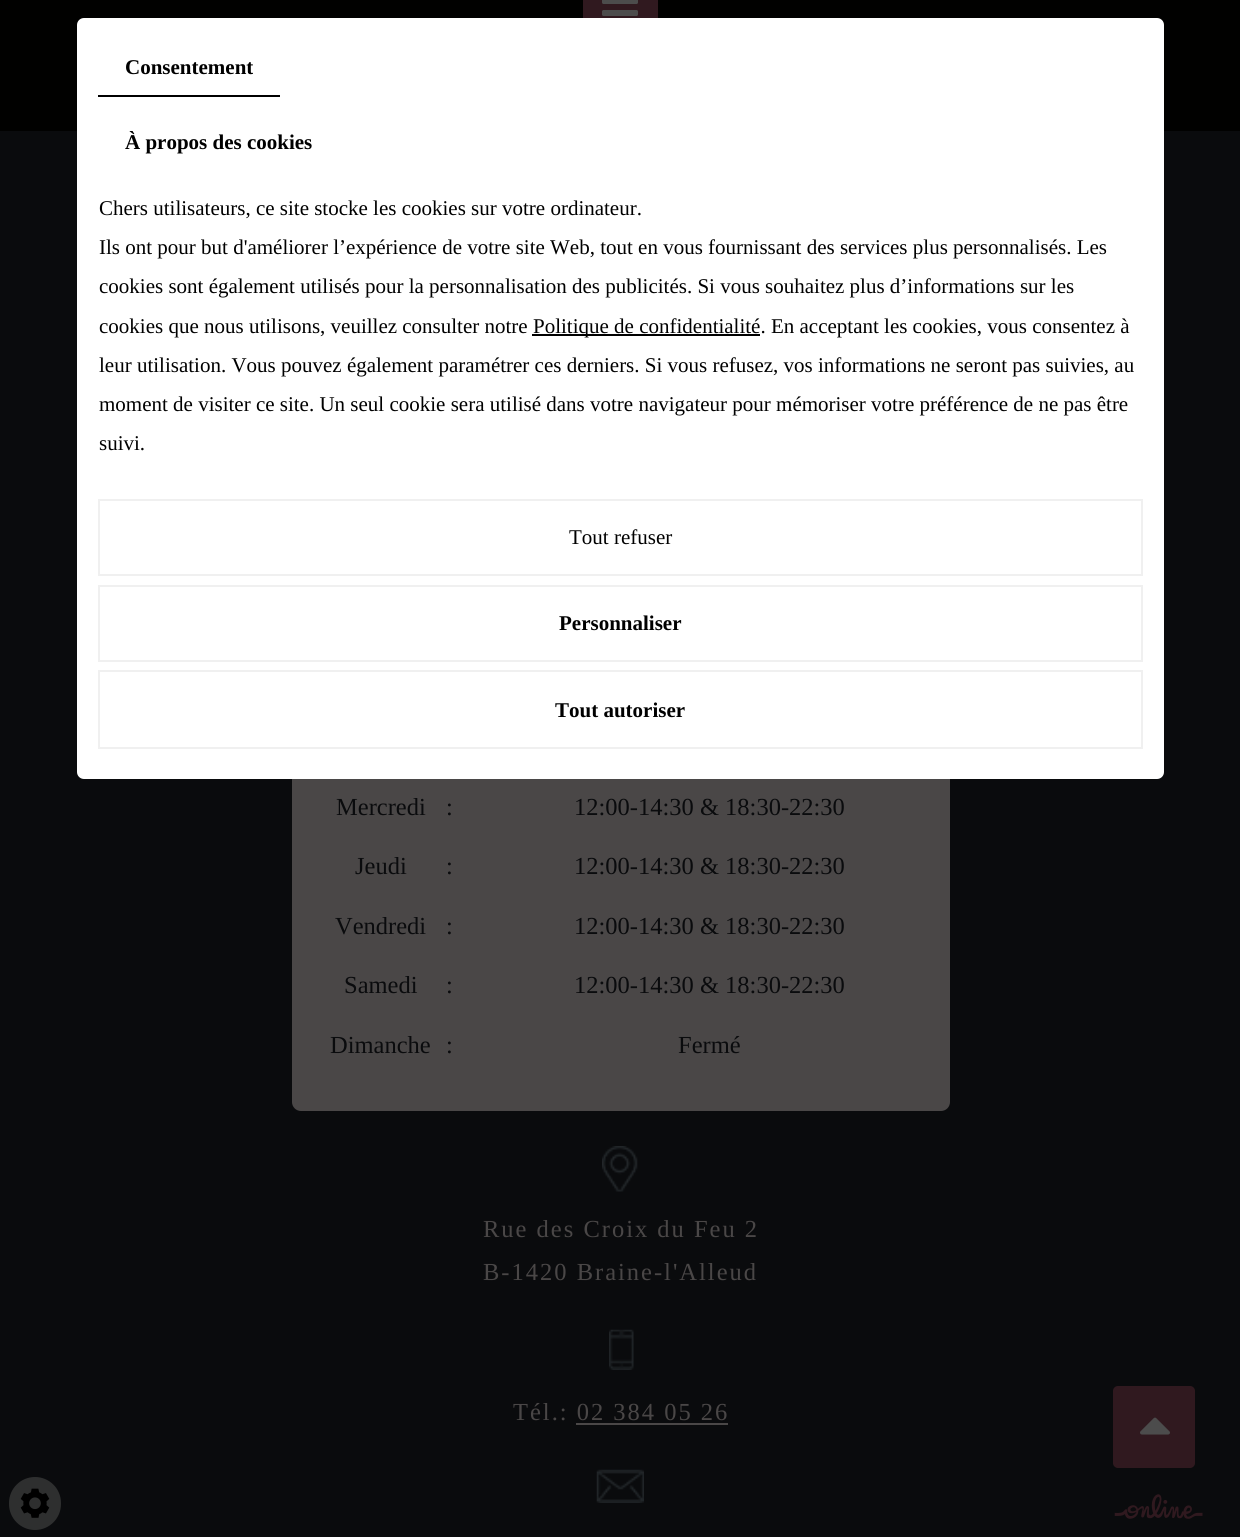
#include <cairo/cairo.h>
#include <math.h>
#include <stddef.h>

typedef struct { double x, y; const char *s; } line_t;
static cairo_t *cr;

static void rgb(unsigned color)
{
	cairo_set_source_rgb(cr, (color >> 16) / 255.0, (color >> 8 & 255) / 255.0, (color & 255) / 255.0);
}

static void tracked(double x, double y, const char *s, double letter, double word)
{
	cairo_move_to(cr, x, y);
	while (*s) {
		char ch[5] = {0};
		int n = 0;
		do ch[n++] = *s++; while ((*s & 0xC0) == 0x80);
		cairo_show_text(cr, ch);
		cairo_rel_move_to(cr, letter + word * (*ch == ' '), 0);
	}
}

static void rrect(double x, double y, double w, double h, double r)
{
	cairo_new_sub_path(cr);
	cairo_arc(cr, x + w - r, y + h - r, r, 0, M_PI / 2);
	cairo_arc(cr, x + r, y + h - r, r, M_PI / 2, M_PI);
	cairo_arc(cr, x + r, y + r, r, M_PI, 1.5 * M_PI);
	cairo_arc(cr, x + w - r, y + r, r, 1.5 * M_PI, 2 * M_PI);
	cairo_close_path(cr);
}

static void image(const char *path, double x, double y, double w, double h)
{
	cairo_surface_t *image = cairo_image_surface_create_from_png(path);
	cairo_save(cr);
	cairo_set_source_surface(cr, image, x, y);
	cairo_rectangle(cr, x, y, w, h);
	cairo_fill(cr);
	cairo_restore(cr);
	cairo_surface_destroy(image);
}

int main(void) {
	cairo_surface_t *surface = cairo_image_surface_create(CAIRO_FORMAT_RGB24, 1240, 1537);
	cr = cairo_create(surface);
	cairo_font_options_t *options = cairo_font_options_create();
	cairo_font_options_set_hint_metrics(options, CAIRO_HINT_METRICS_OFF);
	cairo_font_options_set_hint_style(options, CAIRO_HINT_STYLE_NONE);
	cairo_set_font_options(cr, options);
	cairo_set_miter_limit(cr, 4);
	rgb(0x0a0b0d);
	cairo_paint(cr);
	rgb(0x010100);
	cairo_rectangle(cr, 0, 0, 1240, 131);
	cairo_fill(cr);
	rgb(0x4a4747);
	rrect(292, 455, 658, 656, 9);
	cairo_fill(cr);
	rgb(0xffffff);
	rrect(77, 18, 1087, 761, 7);
	cairo_fill(cr);
	rgb(0x000000);
	cairo_rectangle(cr, 98, 95, 182, 2);
	cairo_fill(cr);
	cairo_rectangle(cr, 532, 334, 228, 2);
	cairo_fill(cr);
	cairo_rectangle(cr, 99, 500, 1043, 75);
	rgb(0xf0f0f0);
	cairo_stroke(cr);
	cairo_rectangle(cr, 99, 586, 1043, 75);
	cairo_stroke(cr);
	cairo_rectangle(cr, 99, 671, 1043, 77);
	cairo_stroke(cr);
	rgb(0x30191f);
	cairo_rectangle(cr, 583, 0, 75, 18);
	cairo_fill(cr);
	image("img/1.png", 602, 0, 36, 16);
	image("img/2.png", 602, 1146, 36, 46);
	image("img/3.png", 609, 1329, 25, 41);
	rgb(0x4a4747);
	cairo_rectangle(cr, 576, 1423, 152, 2);
	cairo_fill(cr);
	image("img/4.png", 596, 1469, 48, 34);
	rgb(0x30191f);
	rrect(1113, 1386, 82, 82, 5);
	cairo_fill(cr);
	image("img/5.png", 1140, 1417, 30, 18);
	rgb(0x2e2f2f);
	rrect(9, 1477, 52, 53, 26);
	cairo_fill(cr);
	image("img/6.png", 20, 1488, 30, 30);
	image("img/7.png", 1114, 1494, 89, 25);
	cairo_select_font_face(cr, "Liberation Serif", CAIRO_FONT_SLANT_NORMAL, CAIRO_FONT_WEIGHT_BOLD);
	cairo_set_font_size(cr, 21);
	rgb(0x000000);
	cairo_move_to(cr, 125, 74);
	cairo_show_text(cr, "Consentement");
	cairo_move_to(cr, 125, 149);
	cairo_show_text(cr, "À propos des cookies");
	cairo_select_font_face(cr, "Liberation Serif", CAIRO_FONT_SLANT_NORMAL, CAIRO_FONT_WEIGHT_NORMAL);
	{
		static const line_t items[] = {
			{99, 215, "Chers utilisateurs, ce site stocke les cookies sur votre ordinateur."},
			{99, 254, "Ils ont pour but d'améliorer l’expérience de votre site Web, tout en vous fournissant des services plus personnalisés. Les"},
			{99, 293, "cookies sont également utilisés pour la personnalisation des publicités. Si vous souhaitez plus d’informations sur les"},
			{99, 333, "cookies que nous utilisons, veuillez consulter notre"},
			{533, 333, "Politique de confidentialité. En acceptant les cookies, vous consentez à"},
			{99, 372, "leur utilisation. Vous pouvez également paramétrer ces derniers. Si vous refusez, vos informations ne seront pas suivies, au"},
			{99, 411, "moment de visiter ce site. Un seul cookie sera utilisé dans votre navigateur pour mémoriser votre préférence de ne pas être"},
			{99, 450, "suivi."},
			{569, 544, "Tout refuser"},
		};
		for (size_t i = 0; i < sizeof items / sizeof *items; i++) {
			cairo_move_to(cr, items[i].x, items[i].y);
			cairo_show_text(cr, items[i].s);
		}
	}
	cairo_select_font_face(cr, "Liberation Serif", CAIRO_FONT_SLANT_NORMAL, CAIRO_FONT_WEIGHT_BOLD);
	cairo_move_to(cr, 559, 630);
	cairo_show_text(cr, "Personnaliser");
	cairo_move_to(cr, 555, 717);
	cairo_show_text(cr, "Tout autoriser");
	cairo_select_font_face(cr, "Liberation Serif", CAIRO_FONT_SLANT_NORMAL, CAIRO_FONT_WEIGHT_NORMAL);
	cairo_set_font_size(cr, 24.5);
	rgb(0x0a0b0d);
	{
		static const line_t items[] = {
			{336, 815, "Mercredi"},
			{446, 815, ":"},
			{574, 815, "12:00-14:30 & 18:30-22:30"},
			{355, 874, "Jeudi"},
			{446, 874, ":"},
			{574, 874, "12:00-14:30 & 18:30-22:30"},
			{335, 934, "Vendredi"},
			{446, 934, ":"},
			{574, 934, "12:00-14:30 & 18:30-22:30"},
			{344, 993, "Samedi"},
			{446, 993, ":"},
			{574, 993, "12:00-14:30 & 18:30-22:30"},
			{330, 1053, "Dimanche"},
			{446, 1053, ":"},
			{678, 1053, "Fermé"},
		};
		for (size_t i = 0; i < sizeof items / sizeof *items; i++) {
			cairo_move_to(cr, items[i].x, items[i].y);
			cairo_show_text(cr, items[i].s);
		}
	}
	rgb(0x4a4747);
	{
		static const line_t items[] = {
			{483, 1237, "Rue des Croix du Feu 2"},
			{483, 1280, "B-1420 Braine-l'Alleud"},
			{513, 1420, "Tél.: 02 384 05 26"},
		};
		for (size_t i = 0; i < sizeof items / sizeof *items; i++) {
			tracked(items[i].x, items[i].y, items[i].s, 2, 0);
		}
	}
	cairo_surface_write_to_png(surface, "page.png");
	cairo_font_options_destroy(options);
	cairo_destroy(cr);
	cairo_surface_destroy(surface);
	return 0;
}
